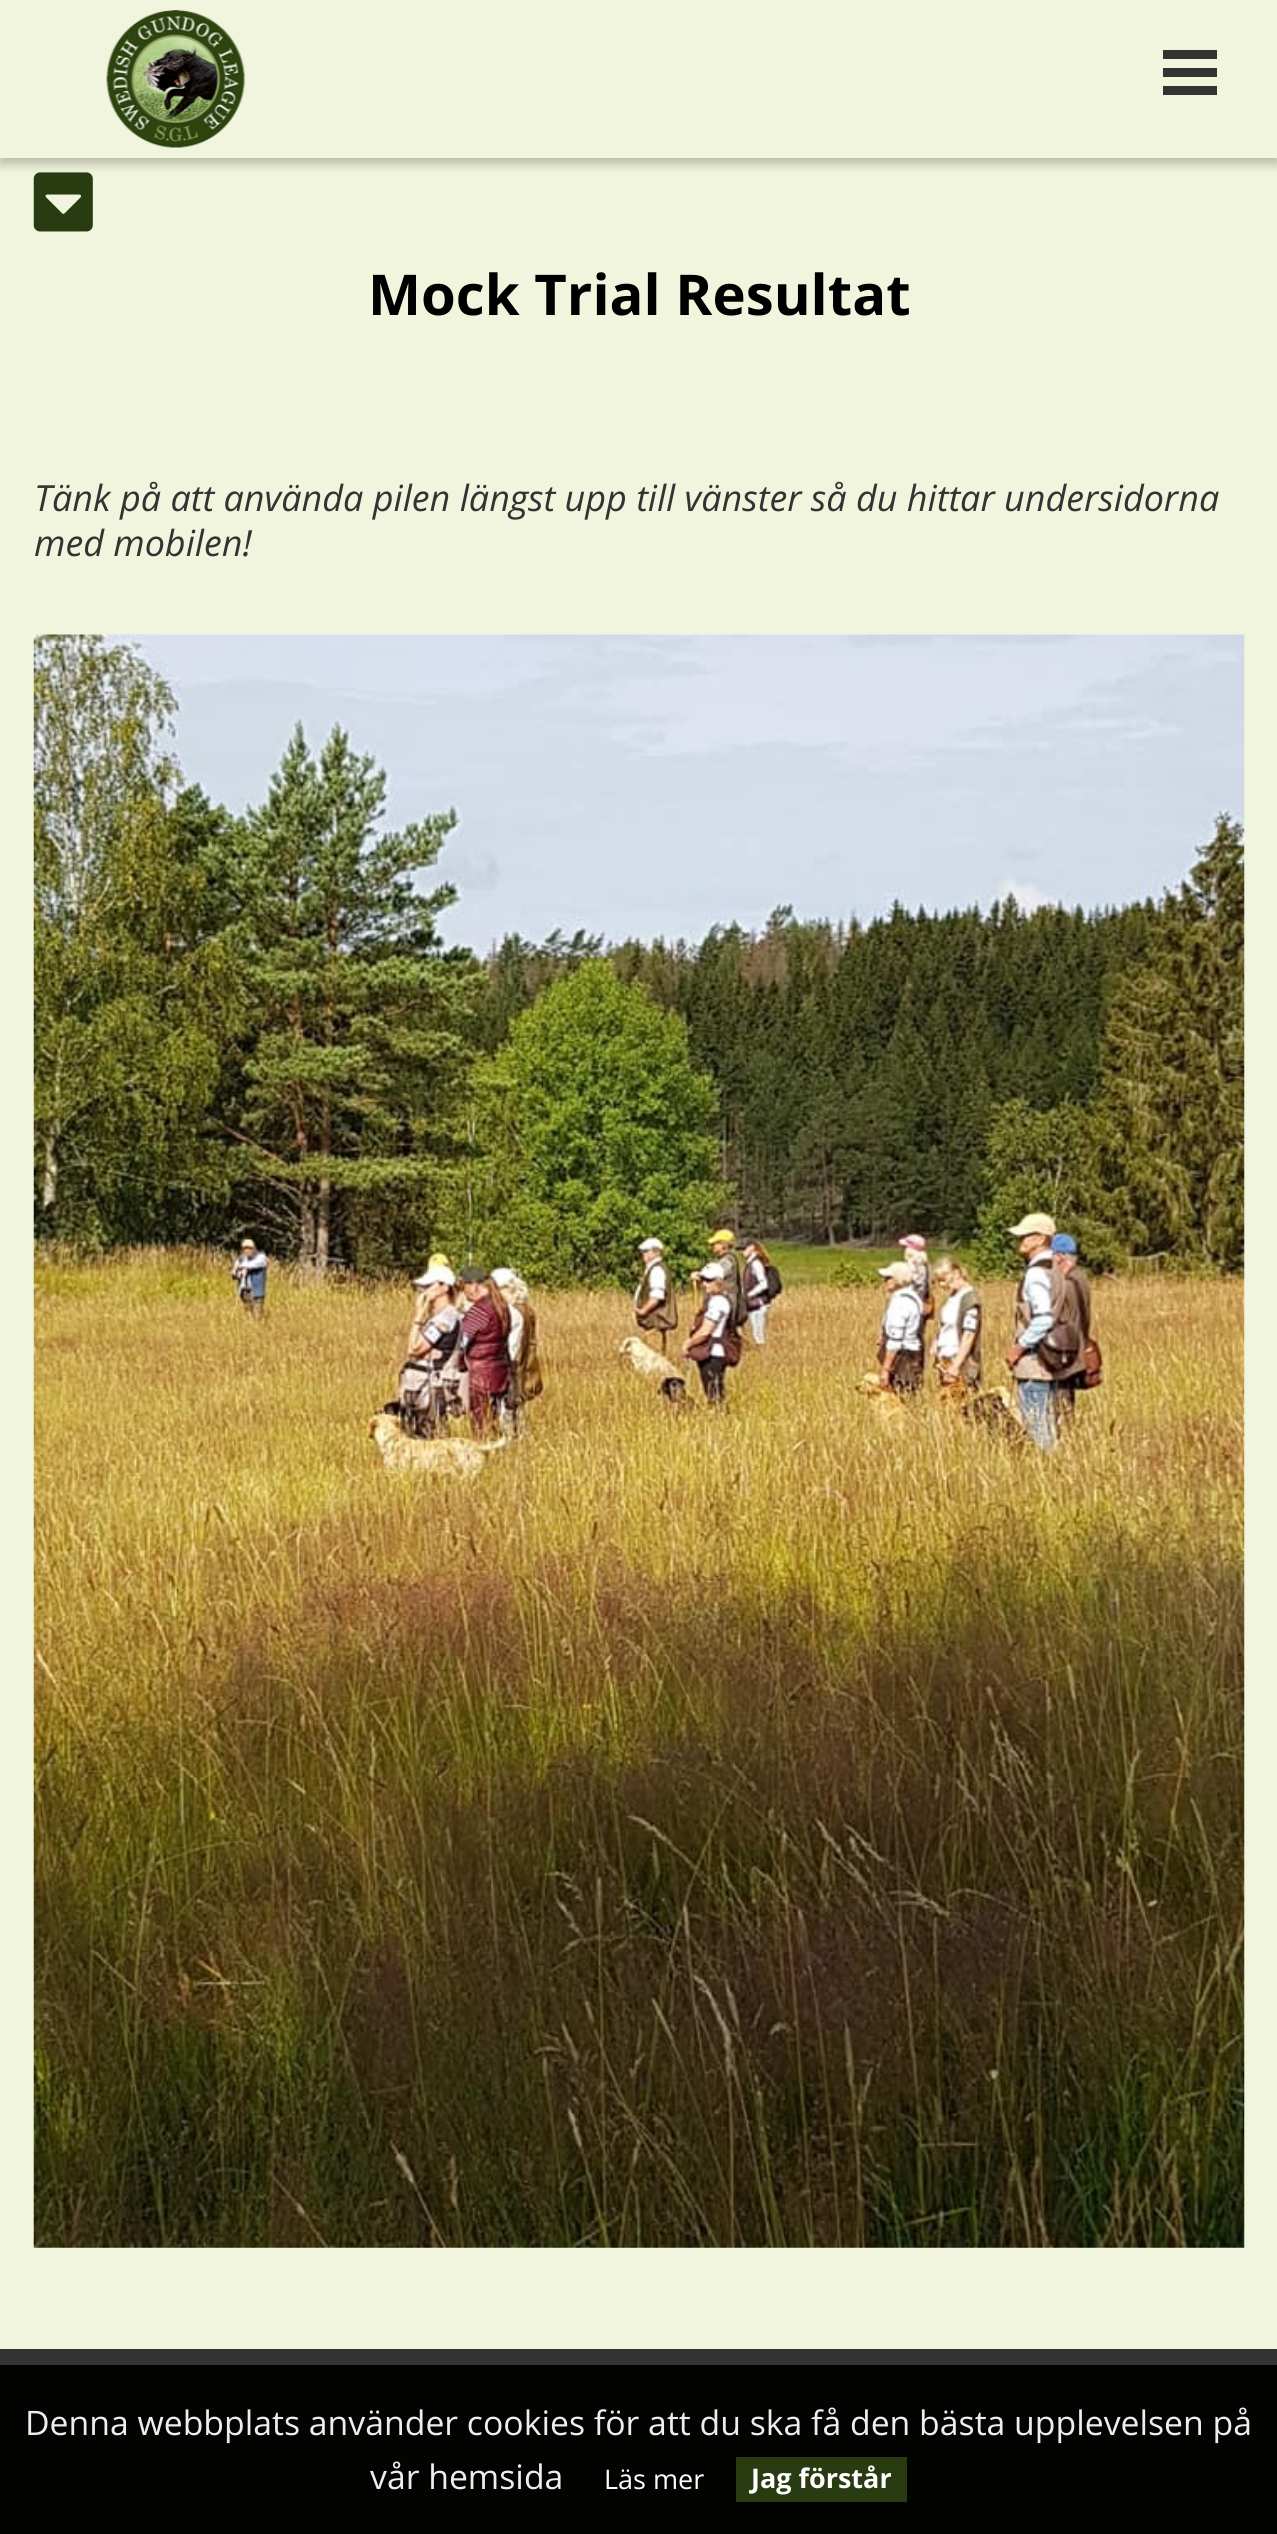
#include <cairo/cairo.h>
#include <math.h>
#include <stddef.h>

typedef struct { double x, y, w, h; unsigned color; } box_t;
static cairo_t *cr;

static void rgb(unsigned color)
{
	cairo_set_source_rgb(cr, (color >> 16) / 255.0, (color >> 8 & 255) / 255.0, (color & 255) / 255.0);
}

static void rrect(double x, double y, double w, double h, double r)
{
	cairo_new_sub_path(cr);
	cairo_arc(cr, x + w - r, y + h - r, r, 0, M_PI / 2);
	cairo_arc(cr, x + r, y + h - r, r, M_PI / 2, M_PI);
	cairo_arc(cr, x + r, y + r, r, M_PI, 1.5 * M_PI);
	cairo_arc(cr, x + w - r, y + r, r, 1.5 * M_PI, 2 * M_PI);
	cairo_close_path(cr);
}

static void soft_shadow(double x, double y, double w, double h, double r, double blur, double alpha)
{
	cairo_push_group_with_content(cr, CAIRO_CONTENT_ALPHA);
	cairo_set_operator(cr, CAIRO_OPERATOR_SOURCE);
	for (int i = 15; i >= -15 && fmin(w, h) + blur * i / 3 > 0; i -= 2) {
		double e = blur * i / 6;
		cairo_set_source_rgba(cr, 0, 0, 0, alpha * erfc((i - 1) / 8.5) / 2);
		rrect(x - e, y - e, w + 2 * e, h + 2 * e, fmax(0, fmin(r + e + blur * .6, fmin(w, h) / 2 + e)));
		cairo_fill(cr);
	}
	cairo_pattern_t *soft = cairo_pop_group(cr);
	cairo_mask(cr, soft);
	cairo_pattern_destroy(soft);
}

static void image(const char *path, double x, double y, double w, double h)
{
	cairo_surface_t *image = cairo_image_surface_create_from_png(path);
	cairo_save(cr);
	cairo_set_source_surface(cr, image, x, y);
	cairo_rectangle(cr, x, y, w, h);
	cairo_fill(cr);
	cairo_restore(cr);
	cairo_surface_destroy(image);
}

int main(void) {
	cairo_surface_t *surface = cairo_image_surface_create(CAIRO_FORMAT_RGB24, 1277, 2534);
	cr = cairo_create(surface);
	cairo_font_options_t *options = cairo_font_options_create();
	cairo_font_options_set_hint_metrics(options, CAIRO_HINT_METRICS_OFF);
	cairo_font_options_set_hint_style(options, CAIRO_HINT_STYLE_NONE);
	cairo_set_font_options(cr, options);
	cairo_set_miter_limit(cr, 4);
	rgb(0xf1f5dd);
	cairo_paint(cr);
	image("img/2.png", 33, 172, 60, 60);
	rgb(0x000000);
	soft_shadow(0, 7, 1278, 157, 0, 5.5, 0.25);
	rgb(0xf1f5dd);
	cairo_rectangle(cr, 0, 0, 1277, 158);
	cairo_fill(cr);
	image("img/1.png", 106, 10, 139, 139);
	{
		static const box_t items[] = {
			{1163, 68, 54, 9, 0x333333},
			{1163, 50, 54, 9, 0x333333},
			{1163, 86, 54, 9, 0x333333},
		};
		for (size_t i = 0; i < sizeof items / sizeof *items; i++) {
			rgb(items[i].color);
			cairo_rectangle(cr, items[i].x, items[i].y, items[i].w, items[i].h);
			cairo_fill(cr);
		}
	}
	image("img/3.png", 33, 634, 1212, 1614);
	{
		static const box_t items[] = {
			{0, 2349, 1277, 16, 0x333333},
			{0, 2365, 1277, 169, 0x030302},
			{736, 2457, 171, 45, 0x293c11},
		};
		for (size_t i = 0; i < sizeof items / sizeof *items; i++) {
			rgb(items[i].color);
			cairo_rectangle(cr, items[i].x, items[i].y, items[i].w, items[i].h);
			cairo_fill(cr);
		}
	}
	cairo_select_font_face(cr, "Open Sans", CAIRO_FONT_SLANT_NORMAL, CAIRO_FONT_WEIGHT_BOLD);
	cairo_set_font_size(cr, 56.25);
	rgb(0x000000);
	cairo_move_to(cr, 368, 315);
	cairo_show_text(cr, "Mock Trial Resultat");
	cairo_select_font_face(cr, "Open Sans", CAIRO_FONT_SLANT_ITALIC, CAIRO_FONT_WEIGHT_NORMAL);
	cairo_set_font_size(cr, 36);
	rgb(0x333333);
	cairo_move_to(cr, 34, 511);
	cairo_show_text(cr, "Tänk på att använda pilen längst upp till vänster så du hittar undersidorna");
	cairo_move_to(cr, 34, 556);
	cairo_show_text(cr, "med mobilen!");
	cairo_select_font_face(cr, "Open Sans", CAIRO_FONT_SLANT_NORMAL, CAIRO_FONT_WEIGHT_NORMAL);
	cairo_set_font_size(cr, 33.75);
	rgb(0xeeeeee);
	cairo_move_to(cr, 25, 2435);
	cairo_show_text(cr, "Denna webbplats använder cookies för att du ska få den bästa upplevelsen på");
	cairo_move_to(cr, 370, 2489);
	cairo_show_text(cr, "vår hemsida");
	cairo_set_font_size(cr, 27);
	rgb(0xffffff);
	cairo_move_to(cr, 604, 2489);
	cairo_show_text(cr, "Läs mer");
	cairo_select_font_face(cr, "Open Sans", CAIRO_FONT_SLANT_NORMAL, CAIRO_FONT_WEIGHT_BOLD);
	cairo_move_to(cr, 751, 2488);
	cairo_show_text(cr, "Jag förstår");
	cairo_surface_write_to_png(surface, "page.png");
	cairo_font_options_destroy(options);
	cairo_destroy(cr);
	cairo_surface_destroy(surface);
	return 0;
}
